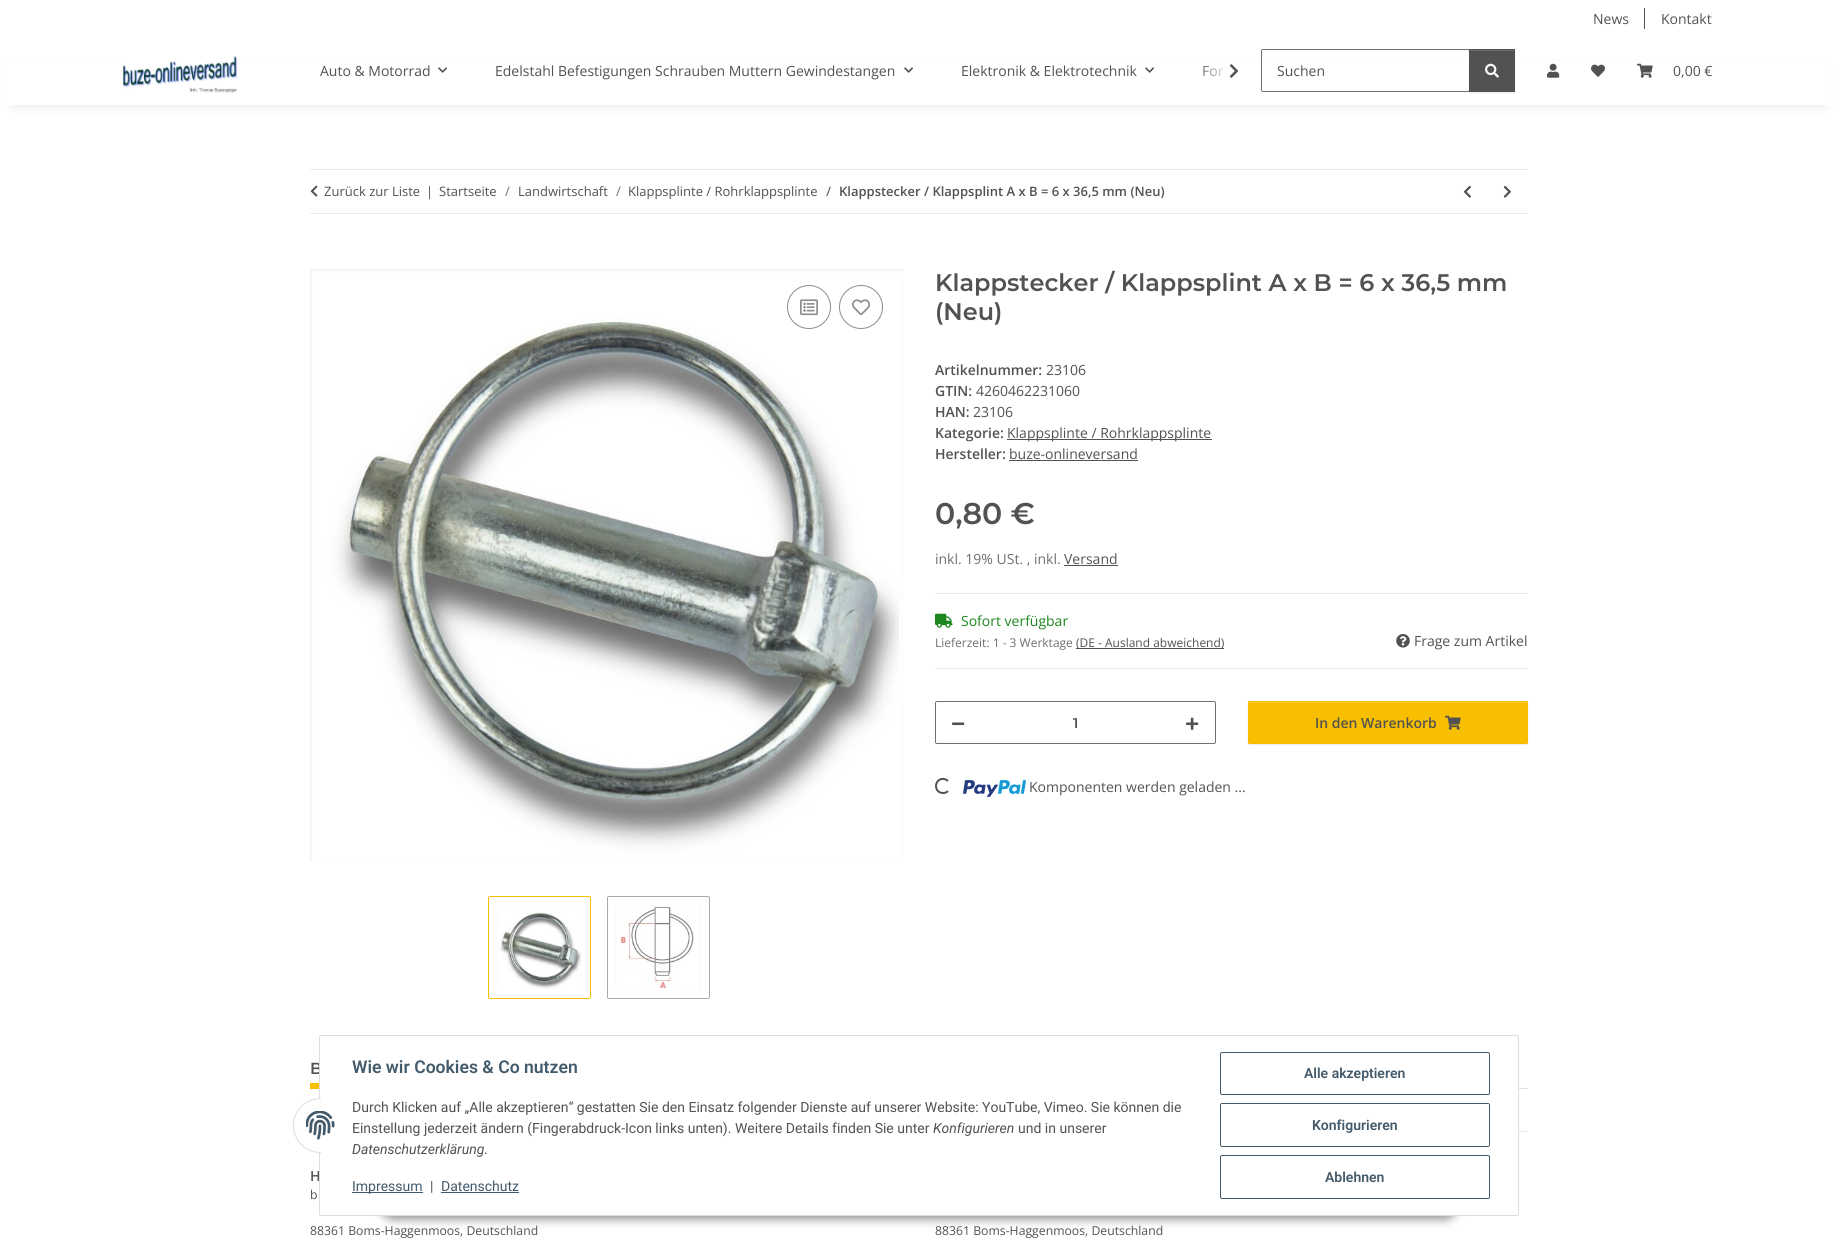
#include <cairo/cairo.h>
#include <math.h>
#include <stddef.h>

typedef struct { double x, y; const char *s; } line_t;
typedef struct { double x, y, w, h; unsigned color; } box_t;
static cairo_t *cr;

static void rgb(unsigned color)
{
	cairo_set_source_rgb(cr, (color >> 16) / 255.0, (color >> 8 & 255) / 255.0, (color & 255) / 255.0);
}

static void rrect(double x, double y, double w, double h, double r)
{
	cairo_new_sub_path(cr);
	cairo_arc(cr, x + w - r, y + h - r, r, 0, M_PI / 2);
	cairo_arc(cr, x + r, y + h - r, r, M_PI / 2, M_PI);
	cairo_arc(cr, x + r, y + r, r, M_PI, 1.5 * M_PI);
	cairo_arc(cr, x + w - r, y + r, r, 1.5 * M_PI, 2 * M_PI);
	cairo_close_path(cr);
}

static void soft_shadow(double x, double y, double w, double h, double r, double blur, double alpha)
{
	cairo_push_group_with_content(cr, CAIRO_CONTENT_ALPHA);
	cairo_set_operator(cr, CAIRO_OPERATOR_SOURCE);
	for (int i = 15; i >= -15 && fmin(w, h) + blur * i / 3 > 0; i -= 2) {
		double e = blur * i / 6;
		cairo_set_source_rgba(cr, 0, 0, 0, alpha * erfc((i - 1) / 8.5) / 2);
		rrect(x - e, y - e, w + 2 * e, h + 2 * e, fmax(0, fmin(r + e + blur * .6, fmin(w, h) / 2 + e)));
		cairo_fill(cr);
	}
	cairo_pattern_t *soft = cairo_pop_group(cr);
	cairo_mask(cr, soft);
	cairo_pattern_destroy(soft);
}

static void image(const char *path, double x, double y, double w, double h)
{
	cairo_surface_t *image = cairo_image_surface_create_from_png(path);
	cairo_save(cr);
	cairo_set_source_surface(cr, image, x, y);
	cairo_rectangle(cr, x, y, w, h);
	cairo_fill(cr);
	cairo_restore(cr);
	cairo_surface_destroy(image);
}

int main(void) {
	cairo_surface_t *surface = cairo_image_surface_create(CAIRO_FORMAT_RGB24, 1838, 1248);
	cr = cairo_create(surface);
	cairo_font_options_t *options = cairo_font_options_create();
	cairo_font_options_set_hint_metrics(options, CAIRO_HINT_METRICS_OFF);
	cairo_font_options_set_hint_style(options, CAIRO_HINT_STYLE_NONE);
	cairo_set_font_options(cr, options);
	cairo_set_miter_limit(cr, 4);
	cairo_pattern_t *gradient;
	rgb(0xffffff);
	cairo_paint(cr);
	rgb(0x525252);
	cairo_rectangle(cr, 1644, 8, 1, 21);
	cairo_fill(cr);
	rgb(0x000000);
	soft_shadow(12, 65, 1814, 44, 0, 4.5, 0.06);
	rgb(0xffffff);
	cairo_rectangle(cr, 8, 61, 1822, 44);
	cairo_fill(cr);
	image("img/1.png", 123, 56, 115, 37);
	image("img/2.png", 1229, 64, 10, 14);
	image("img/3.png", 438, 67, 9, 6);
	image("img/3.png", 904, 67, 9, 6);
	image("img/3.png", 1145, 67, 9, 6);
	rrect(1261.5, 49.5, 208, 42, 1.5);
	rgb(0x707070);
	cairo_set_line_width(cr, 1);
	cairo_stroke(cr);
	rgb(0x000000);
	soft_shadow(1469, 50, 46, 43, 0, 0.5, 0.07);
	rgb(0x525252);
	cairo_rectangle(cr, 1469, 49, 46, 43);
	cairo_fill(cr);
	rgb(0x6c6c6c);
	cairo_rectangle(cr, 1470, 50, 44, 1);
	cairo_fill(cr);
	image("img/4.png", 1485, 63, 14, 15);
	image("img/5.png", 1547, 63, 13, 15);
	image("img/6.png", 1591, 64, 14, 13);
	image("img/7.png", 1637, 63, 16, 15);
	rgb(0xebebeb);
	cairo_rectangle(cr, 310, 169, 1218, 1);
	cairo_fill(cr);
	cairo_rectangle(cr, 310, 213, 1218, 1);
	cairo_fill(cr);
	image("img/8.png", 310, 185, 8, 12);
	image("img/9.png", 1463, 185, 8, 13);
	image("img/10.png", 1503, 185, 8, 13);
	image("img/11.png", 310, 269, 593, 593);
	cairo_arc(cr, 809, 307, 21.5, 0, 2 * M_PI);
	rgb(0x8d8d8d);
	cairo_stroke(cr);
	image("img/12.png", 800, 299, 18, 17);
	cairo_arc(cr, 861, 307, 21.5, 0, 2 * M_PI);
	cairo_stroke(cr);
	image("img/13.png", 852, 299, 18, 17);
	rrect(488.5, 896.5, 102, 102, 1.5);
	rgb(0xf8bf00);
	cairo_stroke(cr);
	image("img/14.png", 496, 905, 86, 84);
	rrect(607.5, 896.5, 102, 102, 1.5);
	rgb(0xa9a9a9);
	cairo_stroke(cr);
	image("img/15.png", 615, 905, 86, 86);
	{
		static const box_t items[] = {
			{1007, 439, 205, 1, 0x525252},
			{1009, 460, 129, 1, 0x525252},
			{1064, 565, 54, 1, 0x525252},
			{935, 593, 593, 1, 0xebebeb},
			{935, 668, 593, 1, 0xebebeb},
		};
		for (size_t i = 0; i < sizeof items / sizeof *items; i++) {
			rgb(items[i].color);
			cairo_rectangle(cr, items[i].x, items[i].y, items[i].w, items[i].h);
			cairo_fill(cr);
		}
	}
	image("img/16.png", 935, 613, 18, 15);
	rgb(0x525252);
	cairo_rectangle(cr, 1076, 648, 148, 1);
	cairo_fill(cr);
	image("img/17.png", 1396, 634, 14, 14);
	rrect(935.5, 701.5, 280, 42, 1.5);
	rgb(0x707070);
	cairo_stroke(cr);
	image("img/18.png", 952, 722, 13, 4);
	image("img/19.png", 1186, 717, 13, 13);
	rgb(0x000000);
	soft_shadow(1248, 702, 280, 43, 2, 0.5, 0.07);
	rgb(0xf8bf00);
	rrect(1248, 701, 280, 43, 2);
	cairo_fill(cr);
	rgb(0xf9c926);
	cairo_new_path(cr);
	cairo_move_to(cr, 1250, 703);
	cairo_line_to(cr, 1526, 703);
	cairo_curve_to(cr, 1527, 703, 1527, 703, 1527, 704);
	cairo_curve_to(cr, 1527, 703, 1527, 702, 1526, 702);
	cairo_line_to(cr, 1250, 702);
	cairo_line_to(cr, 1249, 702);
	cairo_line_to(cr, 1249, 704);
	cairo_curve_to(cr, 1249, 703, 1249, 703, 1250, 703);
	cairo_close_path(cr);
	cairo_fill(cr);
	rrect(1248.5, 701.5, 279, 42, 1.5);
	rgb(0xf8bf00);
	cairo_stroke(cr);
	image("img/20.png", 1445, 715, 16, 15);
	cairo_new_path(cr);
	cairo_move_to(cr, 948, 791);
	cairo_curve_to(cr, 946.5, 792.5, 945, 793, 943, 793);
	cairo_curve_to(cr, 934.5, 793, 933.5, 781, 941.5, 779);
	cairo_curve_to(cr, 944, 778.5, 946.5, 779.5, 948, 781);
	rgb(0x525252);
	cairo_set_line_width(cr, 2);
	cairo_stroke(cr);
	image("img/21.png", 963, 780, 63, 17);
	{
		static const box_t items[] = {
			{1519, 1088, 9, 1, 0xdee2e6},
			{310, 1083, 9, 6, 0xf8bf00},
			{1519, 1131, 9, 1, 0xe6e6e6},
		};
		for (size_t i = 0; i < sizeof items / sizeof *items; i++) {
			rgb(items[i].color);
			cairo_rectangle(cr, items[i].x, items[i].y, items[i].w, items[i].h);
			cairo_fill(cr);
		}
	}
	rgb(0x000000);
	soft_shadow(380, 1187, 1078, 32, 16, 5, 0.45);
	cairo_select_font_face(cr, "Open Sans", CAIRO_FONT_SLANT_NORMAL, CAIRO_FONT_WEIGHT_NORMAL);
	cairo_set_font_size(cr, 14);
	rgb(0x525252);
	{
		static const line_t items[] = {
			{1593, 24, "News"},
			{1661, 24, "Kontakt"},
			{320, 76, "Auto & Motorrad"},
			{495, 76, "Edelstahl Befestigungen Schrauben Muttern Gewindestangen"},
			{961, 76, "Elektronik & Elektrotechnik"},
			{1202, 76, "For"},
		};
		for (size_t i = 0; i < sizeof items / sizeof *items; i++) {
			cairo_move_to(cr, items[i].x, items[i].y);
			cairo_show_text(cr, items[i].s);
		}
	}
	gradient = cairo_pattern_create_linear(1197, 71, 1245, 71);
	cairo_pattern_add_color_stop_rgba(gradient, 0, 1, 1, 1, 0.01);
	cairo_pattern_add_color_stop_rgba(gradient, 0.7, 1, 1, 1, 1);
	cairo_set_source(cr, gradient);
	cairo_pattern_destroy(gradient);
	cairo_rectangle(cr, 1203, 66, 21, 11);
	cairo_fill(cr);
	rgb(0x525252);
	cairo_move_to(cr, 1277, 76);
	cairo_show_text(cr, "Suchen");
	cairo_move_to(cr, 1673, 76);
	cairo_show_text(cr, "0,00 €");
	cairo_set_font_size(cr, 13);
	{
		static const line_t items[] = {
			{324, 196, "Zurück zur Liste"},
			{426, 196, "|"},
			{439, 196, "Startseite"},
		};
		for (size_t i = 0; i < sizeof items / sizeof *items; i++) {
			cairo_move_to(cr, items[i].x, items[i].y);
			cairo_show_text(cr, items[i].s);
		}
	}
	rgb(0x707070);
	cairo_move_to(cr, 505, 196);
	cairo_show_text(cr, "/");
	rgb(0x525252);
	cairo_move_to(cr, 518, 196);
	cairo_show_text(cr, "Landwirtschaft");
	rgb(0x707070);
	cairo_move_to(cr, 616, 196);
	cairo_show_text(cr, "/");
	rgb(0x525252);
	cairo_move_to(cr, 628, 196);
	cairo_show_text(cr, "Klappsplinte / Rohrklappsplinte");
	cairo_select_font_face(cr, "Open Sans SemiBold", CAIRO_FONT_SLANT_NORMAL, CAIRO_FONT_WEIGHT_NORMAL);
	rgb(0x707070);
	cairo_move_to(cr, 826, 196);
	cairo_show_text(cr, "/");
	rgb(0x525252);
	cairo_move_to(cr, 839, 196);
	cairo_show_text(cr, "Klappstecker / Klappsplint A x B = 6 x 36,5 mm (Neu)");
	cairo_select_font_face(cr, "Montserrat SemiBold", CAIRO_FONT_SLANT_NORMAL, CAIRO_FONT_WEIGHT_NORMAL);
	cairo_set_font_size(cr, 24);
	cairo_move_to(cr, 935, 291);
	cairo_show_text(cr, "Klappstecker / Klappsplint A x B = 6 x 36,5 mm");
	cairo_move_to(cr, 935, 320);
	cairo_show_text(cr, "(Neu)");
	cairo_select_font_face(cr, "Open Sans SemiBold", CAIRO_FONT_SLANT_NORMAL, CAIRO_FONT_WEIGHT_NORMAL);
	cairo_set_font_size(cr, 14);
	cairo_move_to(cr, 935, 375);
	cairo_show_text(cr, "Artikelnummer:");
	cairo_select_font_face(cr, "Open Sans", CAIRO_FONT_SLANT_NORMAL, CAIRO_FONT_WEIGHT_NORMAL);
	cairo_move_to(cr, 1046, 375);
	cairo_show_text(cr, "23106");
	cairo_select_font_face(cr, "Open Sans SemiBold", CAIRO_FONT_SLANT_NORMAL, CAIRO_FONT_WEIGHT_NORMAL);
	cairo_move_to(cr, 935, 396);
	cairo_show_text(cr, "GTIN:");
	cairo_select_font_face(cr, "Open Sans", CAIRO_FONT_SLANT_NORMAL, CAIRO_FONT_WEIGHT_NORMAL);
	cairo_move_to(cr, 976, 396);
	cairo_show_text(cr, "4260462231060");
	cairo_select_font_face(cr, "Open Sans SemiBold", CAIRO_FONT_SLANT_NORMAL, CAIRO_FONT_WEIGHT_NORMAL);
	cairo_move_to(cr, 935, 417);
	cairo_show_text(cr, "HAN:");
	cairo_select_font_face(cr, "Open Sans", CAIRO_FONT_SLANT_NORMAL, CAIRO_FONT_WEIGHT_NORMAL);
	cairo_move_to(cr, 973, 417);
	cairo_show_text(cr, "23106");
	cairo_select_font_face(cr, "Open Sans SemiBold", CAIRO_FONT_SLANT_NORMAL, CAIRO_FONT_WEIGHT_NORMAL);
	cairo_move_to(cr, 935, 438);
	cairo_show_text(cr, "Kategorie:");
	cairo_select_font_face(cr, "Open Sans", CAIRO_FONT_SLANT_NORMAL, CAIRO_FONT_WEIGHT_NORMAL);
	cairo_move_to(cr, 1007, 438);
	cairo_show_text(cr, "Klappsplinte / Rohrklappsplinte");
	cairo_select_font_face(cr, "Open Sans SemiBold", CAIRO_FONT_SLANT_NORMAL, CAIRO_FONT_WEIGHT_NORMAL);
	cairo_move_to(cr, 935, 459);
	cairo_show_text(cr, "Hersteller:");
	cairo_select_font_face(cr, "Open Sans", CAIRO_FONT_SLANT_NORMAL, CAIRO_FONT_WEIGHT_NORMAL);
	cairo_move_to(cr, 1009, 459);
	cairo_show_text(cr, "buze-onlineversand");
	cairo_select_font_face(cr, "Montserrat SemiBold", CAIRO_FONT_SLANT_NORMAL, CAIRO_FONT_WEIGHT_NORMAL);
	cairo_set_font_size(cr, 30);
	cairo_move_to(cr, 935, 524);
	cairo_show_text(cr, "0,80 €");
	cairo_select_font_face(cr, "Open Sans", CAIRO_FONT_SLANT_NORMAL, CAIRO_FONT_WEIGHT_NORMAL);
	cairo_set_font_size(cr, 14);
	rgb(0x707070);
	cairo_move_to(cr, 935, 564);
	cairo_show_text(cr, "inkl. 19% USt. , inkl.");
	rgb(0x525252);
	cairo_move_to(cr, 1064, 564);
	cairo_show_text(cr, "Versand");
	rgb(0x1c871e);
	cairo_move_to(cr, 961, 626);
	cairo_show_text(cr, "Sofort verfügbar");
	cairo_set_font_size(cr, 12);
	rgb(0x707070);
	cairo_move_to(cr, 935, 647);
	cairo_show_text(cr, "Lieferzeit: 1 - 3 Werktage");
	rgb(0x525252);
	cairo_move_to(cr, 1076, 647);
	cairo_show_text(cr, "(DE - Ausland abweichend)");
	cairo_set_font_size(cr, 14);
	cairo_move_to(cr, 1414, 646);
	cairo_show_text(cr, "Frage zum Artikel");
	cairo_select_font_face(cr, "Montserrat SemiBold", CAIRO_FONT_SLANT_NORMAL, CAIRO_FONT_WEIGHT_NORMAL);
	cairo_move_to(cr, 1073, 728);
	cairo_show_text(cr, "1");
	cairo_select_font_face(cr, "Open Sans SemiBold", CAIRO_FONT_SLANT_NORMAL, CAIRO_FONT_WEIGHT_NORMAL);
	cairo_move_to(cr, 1315, 728);
	cairo_show_text(cr, "In den Warenkorb");
	cairo_select_font_face(cr, "Open Sans", CAIRO_FONT_SLANT_NORMAL, CAIRO_FONT_WEIGHT_NORMAL);
	cairo_move_to(cr, 1029, 792);
	cairo_show_text(cr, "Komponenten werden geladen ...");
	cairo_select_font_face(cr, "Montserrat SemiBold", CAIRO_FONT_SLANT_NORMAL, CAIRO_FONT_WEIGHT_NORMAL);
	cairo_set_font_size(cr, 16);
	cairo_move_to(cr, 310, 1074);
	cairo_show_text(cr, "B");
	cairo_select_font_face(cr, "Open Sans SemiBold", CAIRO_FONT_SLANT_NORMAL, CAIRO_FONT_WEIGHT_NORMAL);
	cairo_set_font_size(cr, 14);
	cairo_move_to(cr, 310, 1181);
	cairo_show_text(cr, "H");
	cairo_select_font_face(cr, "Open Sans", CAIRO_FONT_SLANT_NORMAL, CAIRO_FONT_WEIGHT_NORMAL);
	cairo_set_font_size(cr, 12.25);
	{
		static const line_t items[] = {
			{310, 1199, "b"},
			{310, 1235, "88361 Boms-Haggenmoos, Deutschland"},
			{935, 1235, "88361 Boms-Haggenmoos, Deutschland"},
		};
		for (size_t i = 0; i < sizeof items / sizeof *items; i++) {
			cairo_move_to(cr, items[i].x, items[i].y);
			cairo_show_text(cr, items[i].s);
		}
	}
	rgb(0xffffff);
	rrect(319.5, 1035.5, 1199, 180, 1.5);
	cairo_fill_preserve(cr);
	rgb(0xdddddd);
	cairo_set_line_width(cr, 1);
	cairo_stroke(cr);
	rgb(0xffffff);
	cairo_arc(cr, 320.5, 1125.5, 27, 0, 2 * M_PI);
	cairo_fill_preserve(cr);
	rgb(0xdddddd);
	cairo_stroke(cr);
	rgb(0xffffff);
	cairo_rectangle(cr, 321, 1098, 27, 55);
	cairo_fill(cr);
	image("img/22.png", 306, 1111, 29, 29);
	cairo_select_font_face(cr, "Roboto SemiBold", CAIRO_FONT_SLANT_NORMAL, CAIRO_FONT_WEIGHT_NORMAL);
	cairo_set_font_size(cr, 17.6);
	rgb(0x435a6b);
	cairo_move_to(cr, 352, 1073);
	cairo_show_text(cr, "Wie wir Cookies & Co nutzen");
	cairo_select_font_face(cr, "Roboto", CAIRO_FONT_SLANT_NORMAL, CAIRO_FONT_WEIGHT_NORMAL);
	cairo_set_font_size(cr, 14);
	rgb(0x525252);
	cairo_move_to(cr, 352, 1112);
	cairo_show_text(cr, "Durch Klicken auf „Alle akzeptieren“ gestatten Sie den Einsatz folgender Dienste auf unserer Website: YouTube, Vimeo. Sie können die");
	cairo_move_to(cr, 352, 1133);
	cairo_show_text(cr, "Einstellung jederzeit ändern (Fingerabdruck-Icon links unten). Weitere Details finden Sie unter");
	cairo_select_font_face(cr, "Roboto", CAIRO_FONT_SLANT_ITALIC, CAIRO_FONT_WEIGHT_NORMAL);
	cairo_move_to(cr, 933, 1133);
	cairo_show_text(cr, "Konfigurieren");
	cairo_select_font_face(cr, "Roboto", CAIRO_FONT_SLANT_NORMAL, CAIRO_FONT_WEIGHT_NORMAL);
	cairo_move_to(cr, 1018, 1133);
	cairo_show_text(cr, "und in unserer");
	cairo_select_font_face(cr, "Roboto", CAIRO_FONT_SLANT_ITALIC, CAIRO_FONT_WEIGHT_NORMAL);
	cairo_move_to(cr, 352, 1154);
	cairo_show_text(cr, "Datenschutzerklärung");
	cairo_select_font_face(cr, "Roboto", CAIRO_FONT_SLANT_NORMAL, CAIRO_FONT_WEIGHT_NORMAL);
	cairo_move_to(cr, 484, 1154);
	cairo_show_text(cr, ".");
	rgb(0x435a6b);
	cairo_rectangle(cr, 352, 1192, 71, 1);
	cairo_fill(cr);
	cairo_move_to(cr, 352, 1191);
	cairo_show_text(cr, "Impressum");
	rgb(0x525252);
	cairo_move_to(cr, 430, 1191);
	cairo_show_text(cr, "|");
	rgb(0x435a6b);
	cairo_move_to(cr, 441, 1191);
	cairo_show_text(cr, "Datenschutz");
	cairo_rectangle(cr, 441, 1192, 78, 1);
	cairo_fill(cr);
	rrect(1220.5, 1052.5, 269, 42, 1.5);
	cairo_stroke(cr);
	cairo_select_font_face(cr, "Roboto SemiBold", CAIRO_FONT_SLANT_NORMAL, CAIRO_FONT_WEIGHT_NORMAL);
	cairo_move_to(cr, 1304, 1078);
	cairo_show_text(cr, "Alle akzeptieren");
	rrect(1220.5, 1103.5, 269, 43, 1.5);
	cairo_stroke(cr);
	cairo_move_to(cr, 1312, 1130);
	cairo_show_text(cr, "Konfigurieren");
	rrect(1220.5, 1155.5, 269, 43, 1.5);
	cairo_stroke(cr);
	cairo_move_to(cr, 1325, 1182);
	cairo_show_text(cr, "Ablehnen");
	cairo_surface_write_to_png(surface, "page.png");
	cairo_font_options_destroy(options);
	cairo_destroy(cr);
	cairo_surface_destroy(surface);
	return 0;
}
